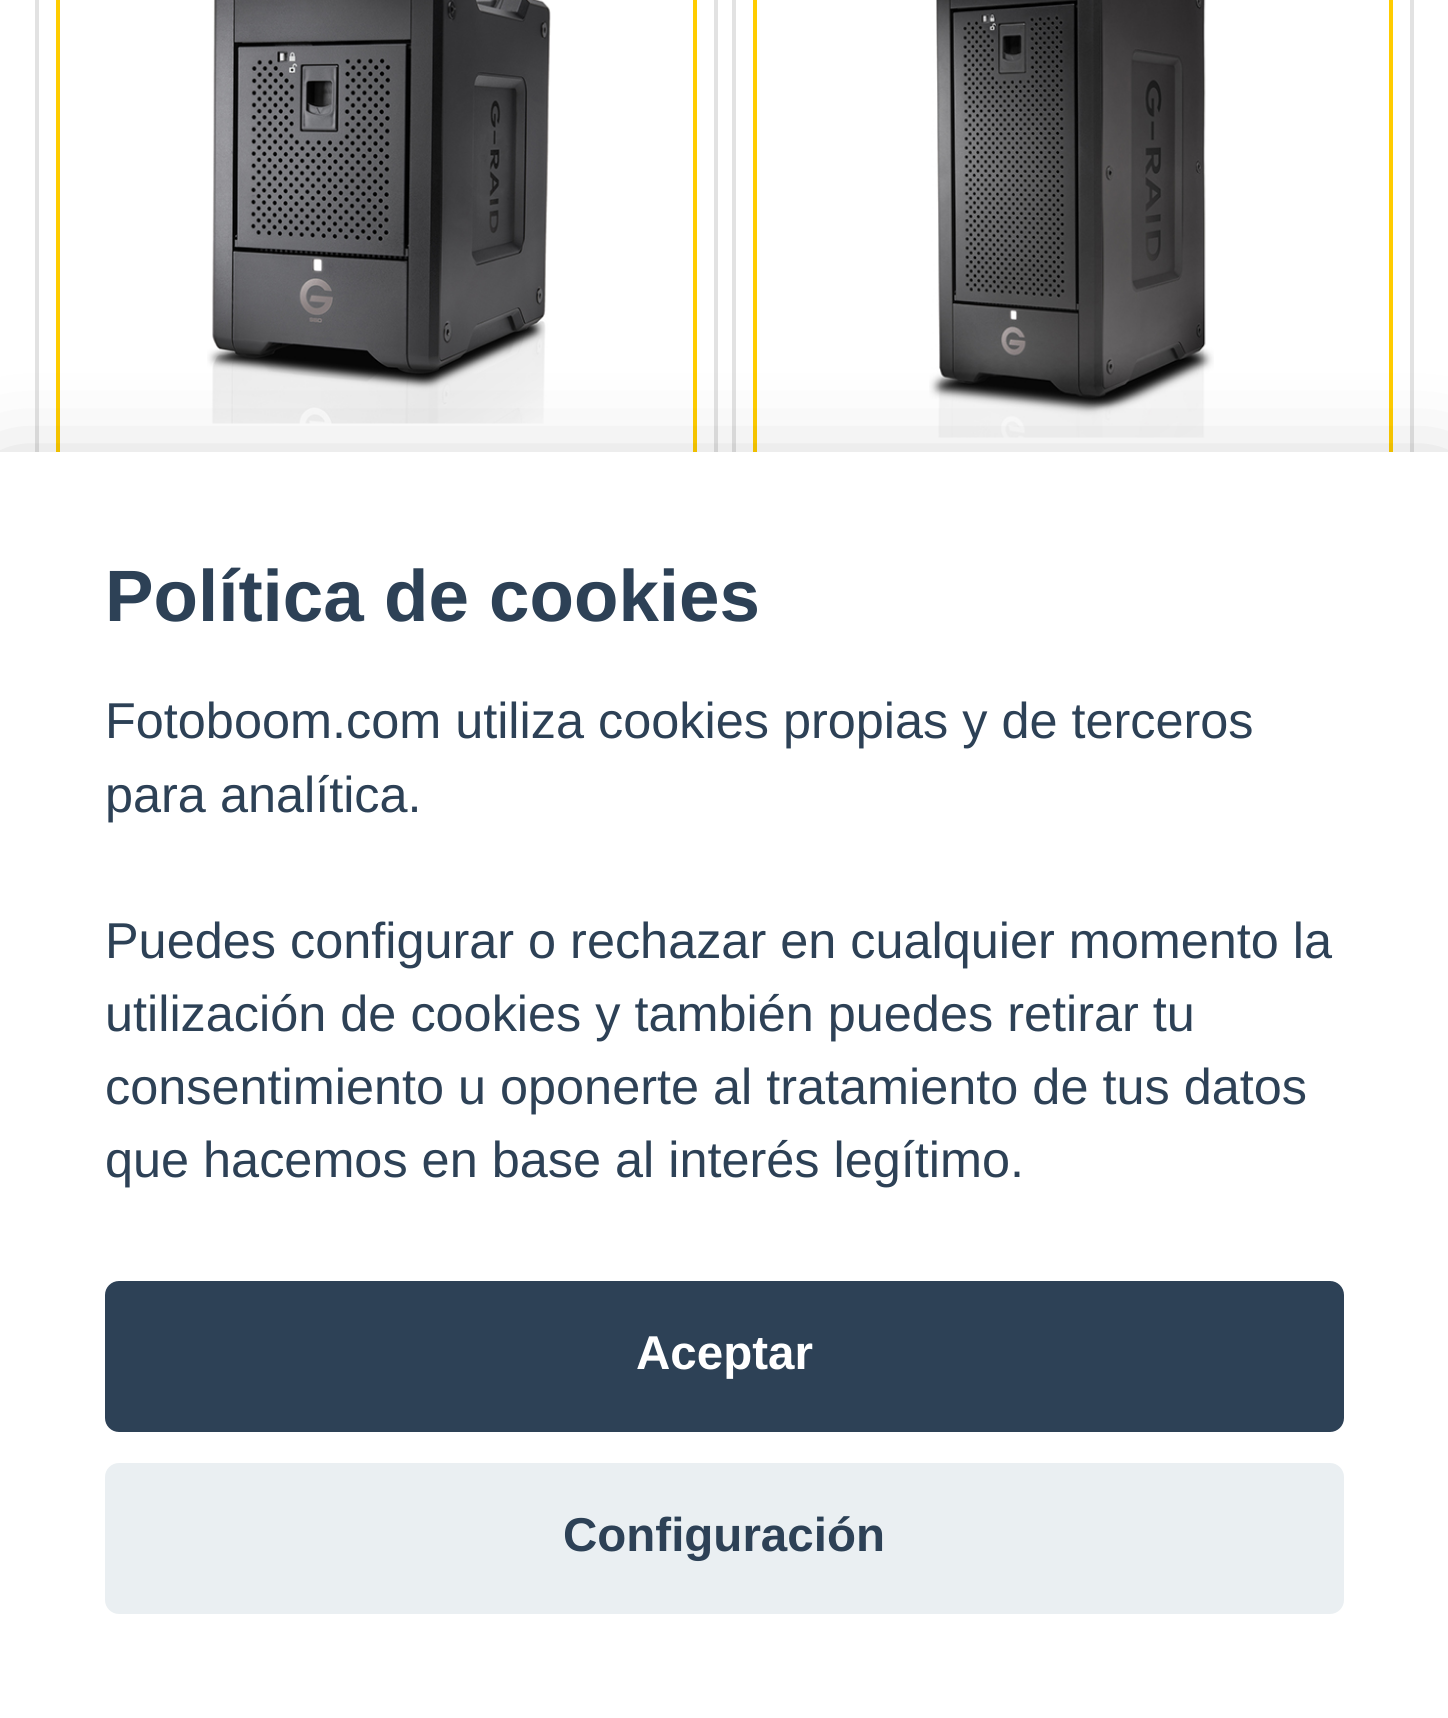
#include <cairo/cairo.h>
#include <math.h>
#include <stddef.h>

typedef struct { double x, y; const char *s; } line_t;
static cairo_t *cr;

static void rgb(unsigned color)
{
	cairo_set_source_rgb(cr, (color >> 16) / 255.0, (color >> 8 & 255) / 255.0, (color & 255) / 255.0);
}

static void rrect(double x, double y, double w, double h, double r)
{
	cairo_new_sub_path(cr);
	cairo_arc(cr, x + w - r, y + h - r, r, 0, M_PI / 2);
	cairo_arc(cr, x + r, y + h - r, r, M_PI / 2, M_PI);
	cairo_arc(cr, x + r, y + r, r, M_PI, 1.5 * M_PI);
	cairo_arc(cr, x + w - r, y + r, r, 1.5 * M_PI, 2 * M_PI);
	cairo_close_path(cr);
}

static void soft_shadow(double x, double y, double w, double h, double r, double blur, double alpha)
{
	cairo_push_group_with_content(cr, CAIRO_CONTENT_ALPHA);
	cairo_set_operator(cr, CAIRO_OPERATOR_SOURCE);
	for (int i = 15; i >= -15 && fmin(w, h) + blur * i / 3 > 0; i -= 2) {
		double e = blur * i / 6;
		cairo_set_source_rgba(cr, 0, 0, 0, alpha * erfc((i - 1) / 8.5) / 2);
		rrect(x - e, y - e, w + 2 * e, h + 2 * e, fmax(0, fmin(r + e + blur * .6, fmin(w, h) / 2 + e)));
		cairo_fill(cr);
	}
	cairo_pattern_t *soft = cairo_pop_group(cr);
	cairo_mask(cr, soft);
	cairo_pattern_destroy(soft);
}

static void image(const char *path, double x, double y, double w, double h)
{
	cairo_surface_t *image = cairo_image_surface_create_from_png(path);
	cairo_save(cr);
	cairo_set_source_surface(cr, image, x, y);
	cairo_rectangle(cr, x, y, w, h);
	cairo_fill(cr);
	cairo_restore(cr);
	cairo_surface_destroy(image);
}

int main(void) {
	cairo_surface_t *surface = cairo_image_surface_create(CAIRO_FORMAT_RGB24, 1448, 1718);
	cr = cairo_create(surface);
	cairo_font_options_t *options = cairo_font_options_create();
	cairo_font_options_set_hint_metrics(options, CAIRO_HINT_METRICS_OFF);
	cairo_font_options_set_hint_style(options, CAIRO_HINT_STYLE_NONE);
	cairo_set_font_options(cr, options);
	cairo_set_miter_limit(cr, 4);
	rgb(0xffffff);
	cairo_paint(cr);
	cairo_rectangle(cr, 37, -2, 679, 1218);
	rgb(0xe2e2e2);
	cairo_set_line_width(cr, 4);
	cairo_stroke(cr);
	cairo_rectangle(cr, 58, -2, 637, 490);
	rgb(0xffcc00);
	cairo_stroke(cr);
	image("img/1.png", 207, 0, 344, 424);
	cairo_rectangle(cr, 734, -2, 678, 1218);
	rgb(0xe2e2e2);
	cairo_stroke(cr);
	cairo_rectangle(cr, 755, -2, 636, 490);
	rgb(0xffcc00);
	cairo_stroke(cr);
	image("img/2.png", 929, 0, 285, 438);
	rgb(0x020203);
	soft_shadow(0, 487, 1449, 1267, 0, 52.5, 0.28);
	rgb(0xffffff);
	cairo_rectangle(cr, 0, 452, 1448, 1266);
	cairo_fill(cr);
	rgb(0x2d4156);
	rrect(105, 1281, 1239, 151, 14);
	cairo_fill(cr);
	rgb(0xeaeff2);
	rrect(105, 1463, 1239, 151, 14);
	cairo_fill(cr);
	cairo_select_font_face(cr, "Liberation Sans", CAIRO_FONT_SLANT_NORMAL, CAIRO_FONT_WEIGHT_BOLD);
	cairo_set_font_size(cr, 72.75);
	rgb(0x2d4156);
	cairo_move_to(cr, 105, 621);
	cairo_show_text(cr, "Política de cookies");
	cairo_select_font_face(cr, "Liberation Sans", CAIRO_FONT_SLANT_NORMAL, CAIRO_FONT_WEIGHT_NORMAL);
	cairo_set_font_size(cr, 50.4);
	{
		static const line_t items[] = {
			{105, 738, "Fotoboom.com utiliza cookies propias y de terceros"},
			{105, 812, "para analítica."},
			{105, 958, "Puedes configurar o rechazar en cualquier momento la"},
			{105, 1031, "utilización de cookies y también puedes retirar tu"},
			{105, 1104, "consentimiento u oponerte al tratamiento de tus datos"},
			{105, 1177, "que hacemos en base al interés legítimo."},
		};
		for (size_t i = 0; i < sizeof items / sizeof *items; i++) {
			cairo_move_to(cr, items[i].x, items[i].y);
			cairo_show_text(cr, items[i].s);
		}
	}
	cairo_select_font_face(cr, "Liberation Sans", CAIRO_FONT_SLANT_NORMAL, CAIRO_FONT_WEIGHT_BOLD);
	cairo_set_font_size(cr, 47.5);
	rgb(0xffffff);
	cairo_move_to(cr, 636, 1369);
	cairo_show_text(cr, "Aceptar");
	rgb(0x2d4156);
	cairo_move_to(cr, 563, 1551);
	cairo_show_text(cr, "Configuración");
	cairo_surface_write_to_png(surface, "page.png");
	cairo_font_options_destroy(options);
	cairo_destroy(cr);
	cairo_surface_destroy(surface);
	return 0;
}
